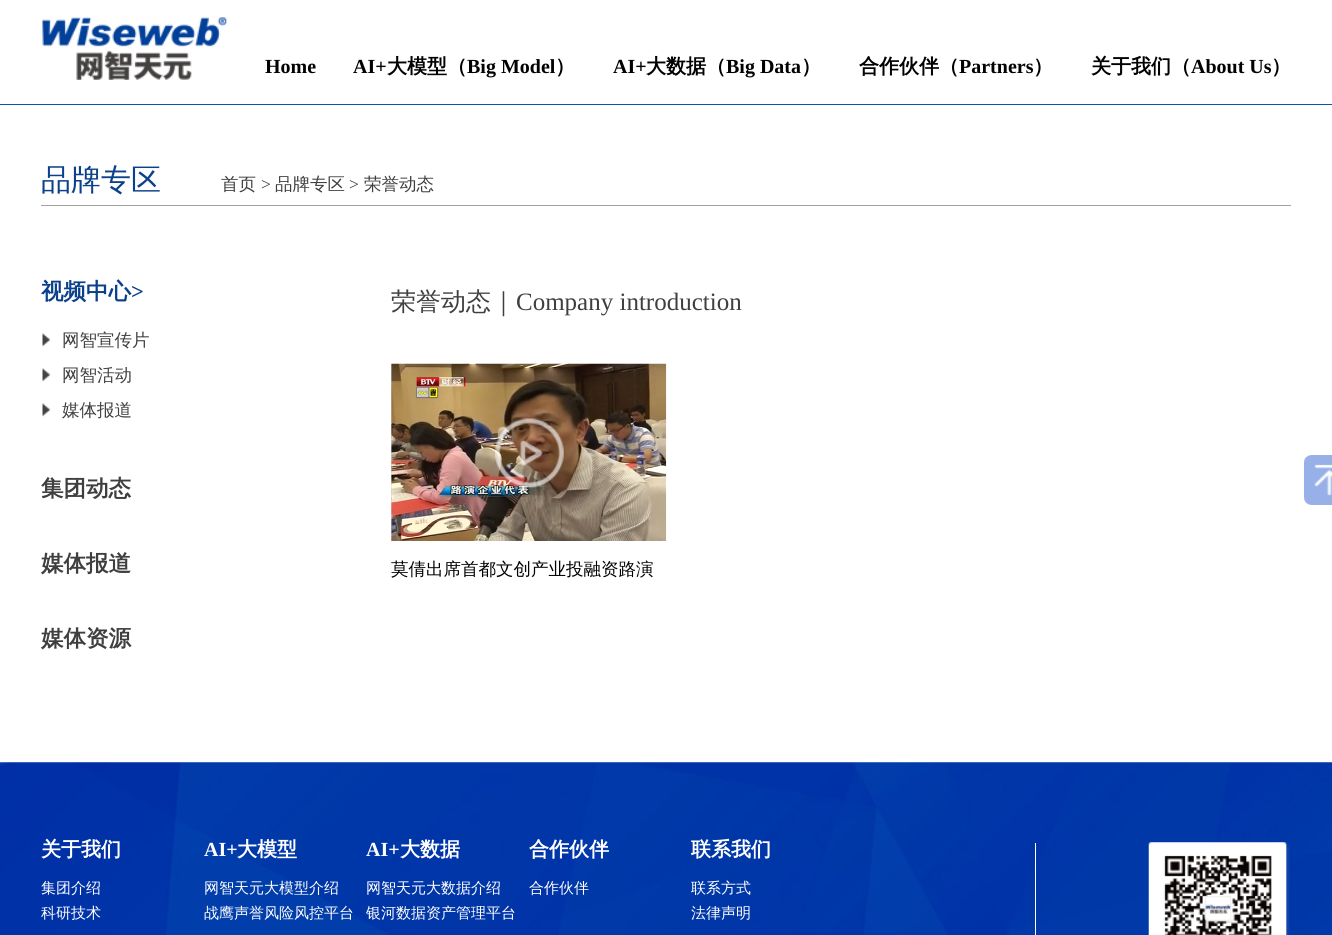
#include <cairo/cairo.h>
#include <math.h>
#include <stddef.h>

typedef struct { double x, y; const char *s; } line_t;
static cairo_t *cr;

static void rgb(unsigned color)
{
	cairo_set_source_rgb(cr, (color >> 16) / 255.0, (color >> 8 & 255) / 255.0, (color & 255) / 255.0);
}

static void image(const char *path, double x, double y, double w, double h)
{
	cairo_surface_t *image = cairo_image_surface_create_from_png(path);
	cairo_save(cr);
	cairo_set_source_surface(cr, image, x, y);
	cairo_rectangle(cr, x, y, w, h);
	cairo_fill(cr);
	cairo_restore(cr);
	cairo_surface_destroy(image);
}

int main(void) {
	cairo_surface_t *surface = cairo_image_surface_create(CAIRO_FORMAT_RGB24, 1332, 935);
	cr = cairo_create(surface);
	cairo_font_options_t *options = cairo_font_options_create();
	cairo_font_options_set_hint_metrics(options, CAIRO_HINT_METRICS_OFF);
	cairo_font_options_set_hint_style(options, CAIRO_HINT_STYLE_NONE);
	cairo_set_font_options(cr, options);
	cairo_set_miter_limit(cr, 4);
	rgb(0xffffff);
	cairo_paint(cr);
	rgb(0x0e53b0);
	cairo_rectangle(cr, 0, 104, 1332, 1);
	cairo_fill(cr);
	image("img/1.png", 42, 17, 185, 63);
	rgb(0xa0a0a0);
	cairo_rectangle(cr, 41, 205, 1250, 1);
	cairo_fill(cr);
	image("img/2.png", 42, 333, 9, 14);
	image("img/2.png", 42, 368, 9, 14);
	image("img/2.png", 42, 403, 9, 14);
	rgb(0xcccccc);
	cairo_rectangle(cr, 391, 364, 1, 177);
	cairo_fill(cr);
	image("img/3.png", 391, 363, 276, 178);
	image("img/4.png", 494, 418, 70, 70);
	image("img/5.png", 1304, 455, 28, 50);
	image("img/6.png", 0, 762, 1332, 173);
	rgb(0xffffff);
	cairo_rectangle(cr, 1035, 843, 1, 92);
	cairo_fill(cr);
	image("img/7.png", 1148, 842, 142, 93);
	cairo_select_font_face(cr, "Liberation Serif", CAIRO_FONT_SLANT_NORMAL, CAIRO_FONT_WEIGHT_BOLD);
	cairo_set_font_size(cr, 20);
	rgb(0x010101);
	cairo_move_to(cr, 265, 73);
	cairo_show_text(cr, "Home");
	cairo_move_to(cr, 353, 73);
	cairo_show_text(cr, "AI+");
	cairo_select_font_face(cr, "WenQuanYi Zen Hei", CAIRO_FONT_SLANT_NORMAL, CAIRO_FONT_WEIGHT_BOLD);
	cairo_move_to(cr, 387, 73);
	cairo_show_text(cr, "大模型（");
	cairo_select_font_face(cr, "Liberation Serif", CAIRO_FONT_SLANT_NORMAL, CAIRO_FONT_WEIGHT_BOLD);
	cairo_move_to(cr, 467, 73);
	cairo_show_text(cr, "Big Model");
	cairo_select_font_face(cr, "WenQuanYi Zen Hei", CAIRO_FONT_SLANT_NORMAL, CAIRO_FONT_WEIGHT_BOLD);
	cairo_move_to(cr, 555, 73);
	cairo_show_text(cr, "）");
	cairo_select_font_face(cr, "Liberation Serif", CAIRO_FONT_SLANT_NORMAL, CAIRO_FONT_WEIGHT_BOLD);
	cairo_move_to(cr, 613, 73);
	cairo_show_text(cr, "AI+");
	cairo_select_font_face(cr, "WenQuanYi Zen Hei", CAIRO_FONT_SLANT_NORMAL, CAIRO_FONT_WEIGHT_BOLD);
	cairo_move_to(cr, 646, 73);
	cairo_show_text(cr, "大数据（");
	cairo_select_font_face(cr, "Liberation Serif", CAIRO_FONT_SLANT_NORMAL, CAIRO_FONT_WEIGHT_BOLD);
	cairo_move_to(cr, 726, 73);
	cairo_show_text(cr, "Big Data");
	cairo_select_font_face(cr, "WenQuanYi Zen Hei", CAIRO_FONT_SLANT_NORMAL, CAIRO_FONT_WEIGHT_BOLD);
	cairo_move_to(cr, 801, 73);
	cairo_show_text(cr, "）");
	cairo_move_to(cr, 859, 73);
	cairo_show_text(cr, "合作伙伴（");
	cairo_select_font_face(cr, "Liberation Serif", CAIRO_FONT_SLANT_NORMAL, CAIRO_FONT_WEIGHT_BOLD);
	cairo_move_to(cr, 959, 73);
	cairo_show_text(cr, "Partners");
	cairo_select_font_face(cr, "WenQuanYi Zen Hei", CAIRO_FONT_SLANT_NORMAL, CAIRO_FONT_WEIGHT_BOLD);
	cairo_move_to(cr, 1033, 73);
	cairo_show_text(cr, "）");
	cairo_move_to(cr, 1091, 73);
	cairo_show_text(cr, "关于我们（");
	cairo_select_font_face(cr, "Liberation Serif", CAIRO_FONT_SLANT_NORMAL, CAIRO_FONT_WEIGHT_BOLD);
	cairo_move_to(cr, 1191, 73);
	cairo_show_text(cr, "About Us");
	cairo_select_font_face(cr, "WenQuanYi Zen Hei", CAIRO_FONT_SLANT_NORMAL, CAIRO_FONT_WEIGHT_BOLD);
	cairo_move_to(cr, 1271, 73);
	cairo_show_text(cr, "）");
	cairo_select_font_face(cr, "WenQuanYi Zen Hei Medium", CAIRO_FONT_SLANT_NORMAL, CAIRO_FONT_WEIGHT_NORMAL);
	cairo_set_font_size(cr, 30);
	rgb(0x0b408a);
	cairo_move_to(cr, 41, 190);
	cairo_show_text(cr, "品牌专区");
	cairo_set_font_size(cr, 17.5);
	rgb(0x3f3f3f);
	cairo_move_to(cr, 221, 190);
	cairo_show_text(cr, "首页");
	cairo_select_font_face(cr, "Liberation Serif", CAIRO_FONT_SLANT_NORMAL, CAIRO_FONT_WEIGHT_NORMAL);
	cairo_move_to(cr, 261, 190);
	cairo_show_text(cr, ">");
	cairo_select_font_face(cr, "WenQuanYi Zen Hei Medium", CAIRO_FONT_SLANT_NORMAL, CAIRO_FONT_WEIGHT_NORMAL);
	cairo_move_to(cr, 275, 190);
	cairo_show_text(cr, "品牌专区");
	cairo_select_font_face(cr, "Liberation Serif", CAIRO_FONT_SLANT_NORMAL, CAIRO_FONT_WEIGHT_NORMAL);
	cairo_move_to(cr, 349, 190);
	cairo_show_text(cr, ">");
	cairo_select_font_face(cr, "WenQuanYi Zen Hei Medium", CAIRO_FONT_SLANT_NORMAL, CAIRO_FONT_WEIGHT_NORMAL);
	cairo_move_to(cr, 364, 190);
	cairo_show_text(cr, "荣誉动态");
	cairo_select_font_face(cr, "WenQuanYi Zen Hei", CAIRO_FONT_SLANT_NORMAL, CAIRO_FONT_WEIGHT_BOLD);
	cairo_set_font_size(cr, 22.5);
	rgb(0x0b408a);
	cairo_move_to(cr, 41, 299);
	cairo_show_text(cr, "视频中心");
	cairo_select_font_face(cr, "Liberation Serif", CAIRO_FONT_SLANT_NORMAL, CAIRO_FONT_WEIGHT_BOLD);
	cairo_move_to(cr, 131, 299);
	cairo_show_text(cr, ">");
	cairo_select_font_face(cr, "WenQuanYi Zen Hei Medium", CAIRO_FONT_SLANT_NORMAL, CAIRO_FONT_WEIGHT_NORMAL);
	cairo_set_font_size(cr, 17.5);
	rgb(0x3f3f3f);
	{
		static const line_t items[] = {
			{62, 346, "网智宣传片"},
			{62, 381, "网智活动"},
			{62, 416, "媒体报道"},
		};
		for (size_t i = 0; i < sizeof items / sizeof *items; i++) {
			cairo_move_to(cr, items[i].x, items[i].y);
			cairo_show_text(cr, items[i].s);
		}
	}
	cairo_select_font_face(cr, "WenQuanYi Zen Hei", CAIRO_FONT_SLANT_NORMAL, CAIRO_FONT_WEIGHT_BOLD);
	cairo_set_font_size(cr, 22.5);
	{
		static const line_t items[] = {
			{41, 496, "集团动态"},
			{41, 571, "媒体报道"},
			{41, 646, "媒体资源"},
		};
		for (size_t i = 0; i < sizeof items / sizeof *items; i++) {
			cairo_move_to(cr, items[i].x, items[i].y);
			cairo_show_text(cr, items[i].s);
		}
	}
	cairo_select_font_face(cr, "WenQuanYi Zen Hei Medium", CAIRO_FONT_SLANT_NORMAL, CAIRO_FONT_WEIGHT_NORMAL);
	cairo_set_font_size(cr, 25);
	cairo_move_to(cr, 391, 310);
	cairo_show_text(cr, "荣誉动态｜");
	cairo_select_font_face(cr, "Liberation Serif", CAIRO_FONT_SLANT_NORMAL, CAIRO_FONT_WEIGHT_NORMAL);
	cairo_move_to(cr, 516, 310);
	cairo_show_text(cr, "Company introduction");
	cairo_select_font_face(cr, "WenQuanYi Zen Hei Medium", CAIRO_FONT_SLANT_NORMAL, CAIRO_FONT_WEIGHT_NORMAL);
	cairo_set_font_size(cr, 17.5);
	rgb(0x010101);
	cairo_move_to(cr, 391, 575);
	cairo_show_text(cr, "莫倩出席首都文创产业投融资路演");
	cairo_select_font_face(cr, "WenQuanYi Zen Hei", CAIRO_FONT_SLANT_NORMAL, CAIRO_FONT_WEIGHT_BOLD);
	cairo_set_font_size(cr, 20);
	rgb(0xffffff);
	cairo_move_to(cr, 41, 856);
	cairo_show_text(cr, "关于我们");
	cairo_select_font_face(cr, "WenQuanYi Zen Hei Medium", CAIRO_FONT_SLANT_NORMAL, CAIRO_FONT_WEIGHT_NORMAL);
	cairo_set_font_size(cr, 15);
	cairo_move_to(cr, 41, 893);
	cairo_show_text(cr, "集团介绍");
	cairo_move_to(cr, 41, 918);
	cairo_show_text(cr, "科研技术");
	cairo_select_font_face(cr, "Liberation Serif", CAIRO_FONT_SLANT_NORMAL, CAIRO_FONT_WEIGHT_BOLD);
	cairo_set_font_size(cr, 20);
	cairo_move_to(cr, 204, 856);
	cairo_show_text(cr, "AI+");
	cairo_select_font_face(cr, "WenQuanYi Zen Hei", CAIRO_FONT_SLANT_NORMAL, CAIRO_FONT_WEIGHT_BOLD);
	cairo_move_to(cr, 237, 856);
	cairo_show_text(cr, "大模型");
	cairo_select_font_face(cr, "WenQuanYi Zen Hei Medium", CAIRO_FONT_SLANT_NORMAL, CAIRO_FONT_WEIGHT_NORMAL);
	cairo_set_font_size(cr, 15);
	cairo_move_to(cr, 204, 893);
	cairo_show_text(cr, "网智天元大模型介绍");
	cairo_move_to(cr, 204, 918);
	cairo_show_text(cr, "战鹰声誉风险风控平台");
	cairo_select_font_face(cr, "Liberation Serif", CAIRO_FONT_SLANT_NORMAL, CAIRO_FONT_WEIGHT_BOLD);
	cairo_set_font_size(cr, 20);
	cairo_move_to(cr, 366, 856);
	cairo_show_text(cr, "AI+");
	cairo_select_font_face(cr, "WenQuanYi Zen Hei", CAIRO_FONT_SLANT_NORMAL, CAIRO_FONT_WEIGHT_BOLD);
	cairo_move_to(cr, 400, 856);
	cairo_show_text(cr, "大数据");
	cairo_select_font_face(cr, "WenQuanYi Zen Hei Medium", CAIRO_FONT_SLANT_NORMAL, CAIRO_FONT_WEIGHT_NORMAL);
	cairo_set_font_size(cr, 15);
	cairo_move_to(cr, 366, 893);
	cairo_show_text(cr, "网智天元大数据介绍");
	cairo_move_to(cr, 366, 918);
	cairo_show_text(cr, "银河数据资产管理平台");
	cairo_select_font_face(cr, "WenQuanYi Zen Hei", CAIRO_FONT_SLANT_NORMAL, CAIRO_FONT_WEIGHT_BOLD);
	cairo_set_font_size(cr, 20);
	cairo_move_to(cr, 529, 856);
	cairo_show_text(cr, "合作伙伴");
	cairo_select_font_face(cr, "WenQuanYi Zen Hei Medium", CAIRO_FONT_SLANT_NORMAL, CAIRO_FONT_WEIGHT_NORMAL);
	cairo_set_font_size(cr, 15);
	cairo_move_to(cr, 529, 893);
	cairo_show_text(cr, "合作伙伴");
	cairo_select_font_face(cr, "WenQuanYi Zen Hei", CAIRO_FONT_SLANT_NORMAL, CAIRO_FONT_WEIGHT_BOLD);
	cairo_set_font_size(cr, 20);
	cairo_move_to(cr, 691, 856);
	cairo_show_text(cr, "联系我们");
	cairo_select_font_face(cr, "WenQuanYi Zen Hei Medium", CAIRO_FONT_SLANT_NORMAL, CAIRO_FONT_WEIGHT_NORMAL);
	cairo_set_font_size(cr, 15);
	cairo_move_to(cr, 691, 893);
	cairo_show_text(cr, "联系方式");
	cairo_move_to(cr, 691, 918);
	cairo_show_text(cr, "法律声明");
	cairo_surface_write_to_png(surface, "page.png");
	cairo_font_options_destroy(options);
	cairo_destroy(cr);
	cairo_surface_destroy(surface);
	return 0;
}
